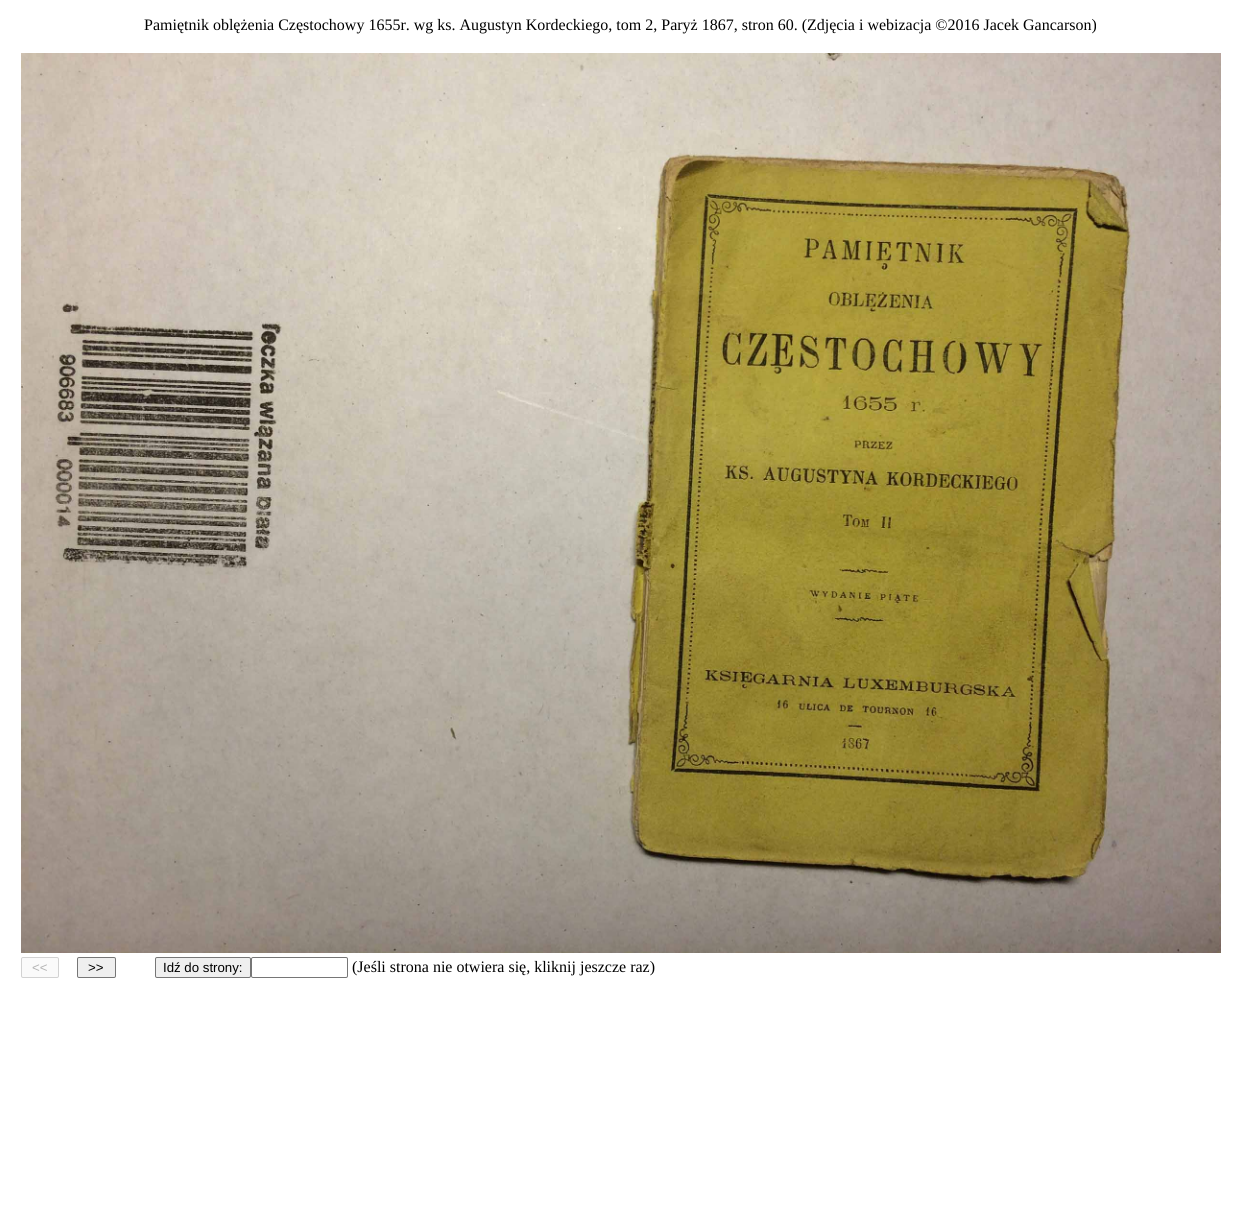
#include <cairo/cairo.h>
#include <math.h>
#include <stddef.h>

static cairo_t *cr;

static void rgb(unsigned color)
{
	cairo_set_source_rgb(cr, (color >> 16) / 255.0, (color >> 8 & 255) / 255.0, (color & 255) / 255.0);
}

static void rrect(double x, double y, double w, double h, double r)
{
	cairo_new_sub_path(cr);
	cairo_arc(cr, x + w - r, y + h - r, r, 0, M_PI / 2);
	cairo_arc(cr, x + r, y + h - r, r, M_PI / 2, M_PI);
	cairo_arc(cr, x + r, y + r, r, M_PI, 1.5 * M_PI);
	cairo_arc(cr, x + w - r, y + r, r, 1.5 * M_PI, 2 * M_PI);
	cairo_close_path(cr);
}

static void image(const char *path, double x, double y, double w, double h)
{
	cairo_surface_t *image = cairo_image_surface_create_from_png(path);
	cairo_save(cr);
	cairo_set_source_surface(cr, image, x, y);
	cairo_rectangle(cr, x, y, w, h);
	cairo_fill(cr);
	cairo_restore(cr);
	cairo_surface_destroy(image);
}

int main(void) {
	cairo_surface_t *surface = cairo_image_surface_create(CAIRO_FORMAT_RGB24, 1241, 1227);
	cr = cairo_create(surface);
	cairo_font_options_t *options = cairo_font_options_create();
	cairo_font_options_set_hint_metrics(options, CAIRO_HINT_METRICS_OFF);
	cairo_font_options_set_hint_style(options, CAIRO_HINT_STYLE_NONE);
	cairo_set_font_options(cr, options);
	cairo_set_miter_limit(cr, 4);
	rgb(0xffffff);
	cairo_paint(cr);
	image("img/1.png", 21, 53, 1200, 900);
	rgb(0xfafafa);
	rrect(21.5, 957.5, 37, 20, 1.5);
	cairo_fill_preserve(cr);
	rgb(0xd2d2d2);
	cairo_set_line_width(cr, 1);
	cairo_stroke(cr);
	rgb(0xefefef);
	rrect(77.5, 957.5, 38, 20, 1.5);
	cairo_fill_preserve(cr);
	rgb(0x767676);
	cairo_stroke(cr);
	rgb(0xefefef);
	rrect(155.5, 957.5, 95, 20, 1.5);
	cairo_fill_preserve(cr);
	rgb(0x767676);
	cairo_stroke(cr);
	rrect(251.5, 957.5, 96, 20, 1.5);
	cairo_stroke(cr);
	cairo_select_font_face(cr, "Liberation Serif", CAIRO_FONT_SLANT_NORMAL, CAIRO_FONT_WEIGHT_NORMAL);
	cairo_set_font_size(cr, 16);
	rgb(0x000000);
	cairo_move_to(cr, 144, 30);
	cairo_show_text(cr, "Pamiętnik oblężenia Częstochowy 1655r. wg ks. Augustyn Kordeckiego, tom 2, Paryż 1867, stron 60. (Zdjęcia i webizacja ©2016 Jacek Gancarson)");
	cairo_select_font_face(cr, "Liberation Sans", CAIRO_FONT_SLANT_NORMAL, CAIRO_FONT_WEIGHT_NORMAL);
	cairo_set_font_size(cr, 13.25);
	rgb(0xb4b4b4);
	cairo_move_to(cr, 32, 972);
	cairo_show_text(cr, "<<");
	rgb(0x000000);
	cairo_move_to(cr, 88, 972);
	cairo_show_text(cr, ">>");
	cairo_move_to(cr, 163, 972);
	cairo_show_text(cr, "Idź do strony:");
	cairo_select_font_face(cr, "Liberation Serif", CAIRO_FONT_SLANT_NORMAL, CAIRO_FONT_WEIGHT_NORMAL);
	cairo_set_font_size(cr, 16);
	cairo_move_to(cr, 352, 972);
	cairo_show_text(cr, "(Jeśli strona nie otwiera się, kliknij jeszcze raz)");
	cairo_surface_write_to_png(surface, "page.png");
	cairo_font_options_destroy(options);
	cairo_destroy(cr);
	cairo_surface_destroy(surface);
	return 0;
}
